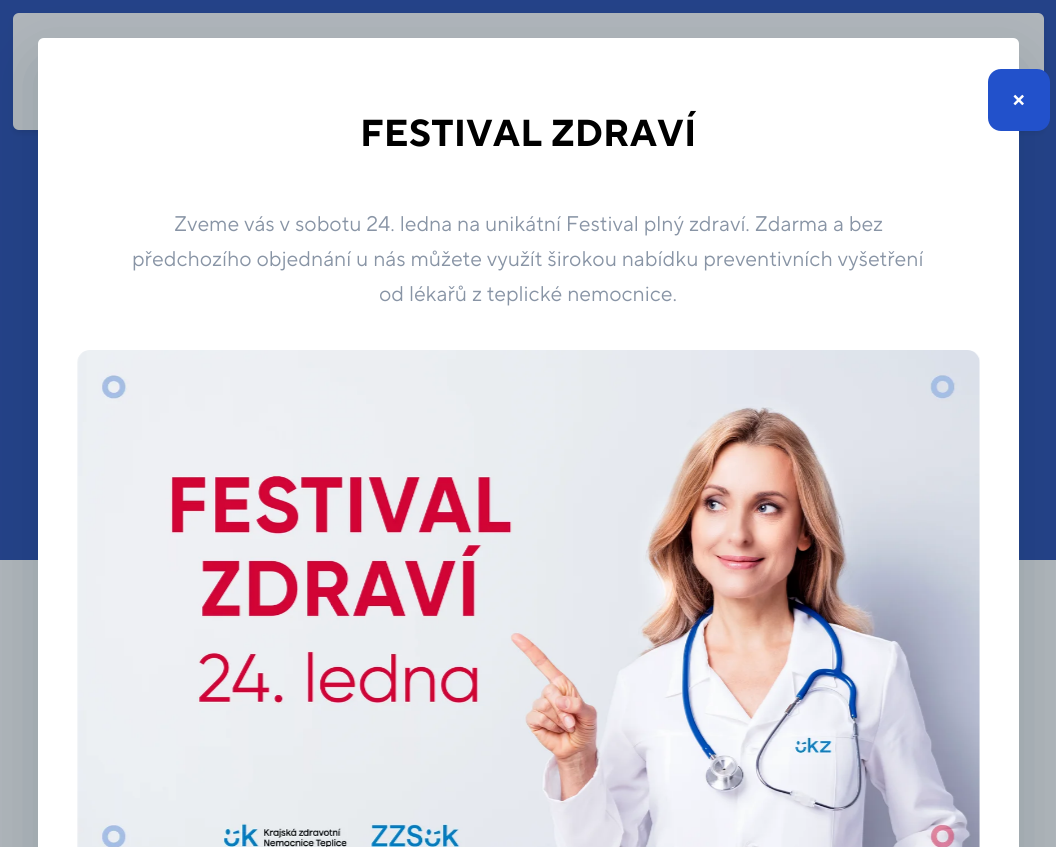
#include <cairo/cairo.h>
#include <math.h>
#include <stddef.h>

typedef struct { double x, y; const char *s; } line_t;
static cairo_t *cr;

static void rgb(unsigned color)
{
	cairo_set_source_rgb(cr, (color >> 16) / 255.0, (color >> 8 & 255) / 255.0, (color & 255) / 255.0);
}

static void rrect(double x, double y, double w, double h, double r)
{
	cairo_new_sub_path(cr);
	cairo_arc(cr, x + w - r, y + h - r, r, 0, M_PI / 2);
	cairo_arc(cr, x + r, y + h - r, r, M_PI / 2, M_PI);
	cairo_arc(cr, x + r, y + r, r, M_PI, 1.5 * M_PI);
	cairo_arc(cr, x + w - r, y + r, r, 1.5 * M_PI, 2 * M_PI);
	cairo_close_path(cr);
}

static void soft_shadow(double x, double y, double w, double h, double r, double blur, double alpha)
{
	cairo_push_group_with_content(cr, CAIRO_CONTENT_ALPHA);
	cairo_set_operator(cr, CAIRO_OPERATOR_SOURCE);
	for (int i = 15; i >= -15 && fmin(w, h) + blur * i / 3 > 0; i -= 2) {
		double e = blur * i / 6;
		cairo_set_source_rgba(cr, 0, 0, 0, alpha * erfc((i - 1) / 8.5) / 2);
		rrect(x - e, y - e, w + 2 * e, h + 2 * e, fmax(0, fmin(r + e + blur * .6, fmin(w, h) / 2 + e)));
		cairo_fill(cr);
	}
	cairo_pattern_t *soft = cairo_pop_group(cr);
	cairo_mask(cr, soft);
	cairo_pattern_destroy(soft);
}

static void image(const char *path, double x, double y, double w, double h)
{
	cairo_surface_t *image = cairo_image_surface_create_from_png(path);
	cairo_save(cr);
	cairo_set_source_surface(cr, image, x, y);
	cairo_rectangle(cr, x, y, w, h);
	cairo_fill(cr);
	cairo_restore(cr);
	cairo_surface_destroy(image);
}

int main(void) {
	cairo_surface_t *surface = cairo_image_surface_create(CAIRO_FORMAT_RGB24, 1056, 847);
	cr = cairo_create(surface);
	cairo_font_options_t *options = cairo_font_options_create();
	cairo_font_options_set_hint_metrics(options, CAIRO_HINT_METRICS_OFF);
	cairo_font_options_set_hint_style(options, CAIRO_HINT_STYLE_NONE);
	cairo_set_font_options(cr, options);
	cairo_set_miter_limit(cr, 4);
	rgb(0xafb5ba);
	cairo_paint(cr);
	rgb(0x244288);
	cairo_rectangle(cr, 0, 0, 1056, 560);
	cairo_fill(cr);
	rgb(0x090f14);
	soft_shadow(13, 15, 1031, 118, 6, 2.5, 0.1);
	rgb(0xafb5ba);
	rrect(13, 13, 1031, 117, 6);
	cairo_fill(cr);
	rgb(0x002236);
	soft_shadow(38, 63, 981, 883, 6, 31, 0.15);
	rgb(0xffffff);
	cairo_new_path(cr);
	cairo_move_to(cr, 44, 38);
	cairo_line_to(cr, 1013, 38);
	cairo_curve_to(cr, 1016.5, 38, 1019, 40.5, 1019, 44);
	cairo_line_to(cr, 1019, 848);
	cairo_line_to(cr, 38, 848);
	cairo_line_to(cr, 38, 44);
	cairo_curve_to(cr, 38, 40.5, 40.5, 38, 44, 38);
	cairo_close_path(cr);
	cairo_fill(cr);
	rgb(0x2251cb);
	rrect(988, 69, 62, 62, 13);
	cairo_fill(cr);
	image("img/1.png", 1013, 94, 11, 12);
	image("img/2.png", 77, 350, 903, 497);
	cairo_select_font_face(cr, "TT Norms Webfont", CAIRO_FONT_SLANT_NORMAL, CAIRO_FONT_WEIGHT_BOLD);
	cairo_set_font_size(cr, 37.5);
	rgb(0x000000);
	cairo_move_to(cr, 360, 146);
	cairo_show_text(cr, "FESTIVAL ZDRAVÍ");
	cairo_select_font_face(cr, "TT Norms Webfont", CAIRO_FONT_SLANT_NORMAL, CAIRO_FONT_WEIGHT_NORMAL);
	cairo_set_font_size(cr, 21.25);
	rgb(0x8894a5);
	{
		static const line_t items[] = {
			{174, 231, "Zveme vás v sobotu 24. ledna na unikátní Festival plný zdraví. Zdarma a bez"},
			{132, 266, "předchozího objednání u nás můžete využít širokou nabídku preventivních vyšetření"},
			{379, 301, "od lékařů z teplické nemocnice."},
		};
		for (size_t i = 0; i < sizeof items / sizeof *items; i++) {
			cairo_move_to(cr, items[i].x, items[i].y);
			cairo_show_text(cr, items[i].s);
		}
	}
	cairo_surface_write_to_png(surface, "page.png");
	cairo_font_options_destroy(options);
	cairo_destroy(cr);
	cairo_surface_destroy(surface);
	return 0;
}
